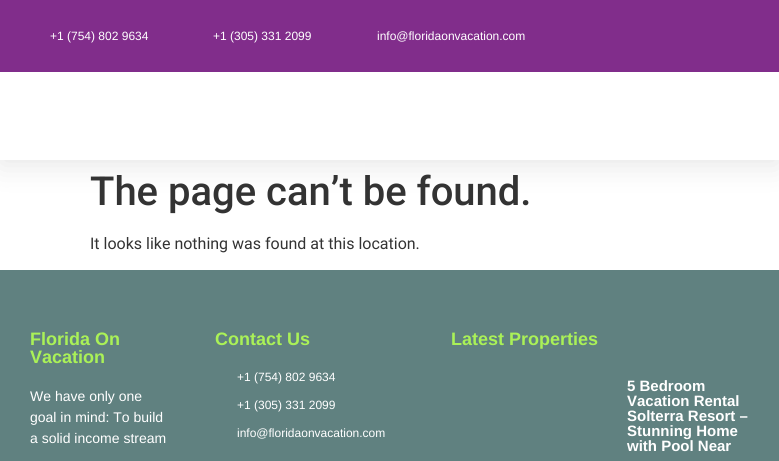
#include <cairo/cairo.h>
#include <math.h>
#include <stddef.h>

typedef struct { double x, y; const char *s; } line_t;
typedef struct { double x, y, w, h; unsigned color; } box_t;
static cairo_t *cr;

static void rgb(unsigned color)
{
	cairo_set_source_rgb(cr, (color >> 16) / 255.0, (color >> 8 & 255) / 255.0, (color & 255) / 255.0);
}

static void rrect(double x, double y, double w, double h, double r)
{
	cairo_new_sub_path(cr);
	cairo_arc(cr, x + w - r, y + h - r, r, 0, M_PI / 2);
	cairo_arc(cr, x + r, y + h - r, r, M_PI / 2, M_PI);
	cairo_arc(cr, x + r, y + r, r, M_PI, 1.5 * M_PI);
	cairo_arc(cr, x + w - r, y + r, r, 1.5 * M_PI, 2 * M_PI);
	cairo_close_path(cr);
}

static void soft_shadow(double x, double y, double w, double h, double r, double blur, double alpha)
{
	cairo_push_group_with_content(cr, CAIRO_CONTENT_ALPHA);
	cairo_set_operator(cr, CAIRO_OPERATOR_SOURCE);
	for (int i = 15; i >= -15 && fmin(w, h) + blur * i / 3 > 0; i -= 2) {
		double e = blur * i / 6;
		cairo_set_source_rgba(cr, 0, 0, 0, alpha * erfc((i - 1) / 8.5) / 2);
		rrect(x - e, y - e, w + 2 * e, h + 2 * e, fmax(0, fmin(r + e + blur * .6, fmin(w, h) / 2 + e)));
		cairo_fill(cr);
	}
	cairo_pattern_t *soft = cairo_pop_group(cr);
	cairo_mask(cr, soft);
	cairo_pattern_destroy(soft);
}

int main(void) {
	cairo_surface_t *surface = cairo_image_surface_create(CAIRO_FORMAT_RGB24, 779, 461);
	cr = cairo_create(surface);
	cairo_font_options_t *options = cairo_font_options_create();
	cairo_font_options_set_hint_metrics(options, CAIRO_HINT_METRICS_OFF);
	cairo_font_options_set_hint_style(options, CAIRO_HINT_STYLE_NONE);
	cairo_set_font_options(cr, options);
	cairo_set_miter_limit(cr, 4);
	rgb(0xffffff);
	cairo_paint(cr);
	rgb(0x000000);
	soft_shadow(0, 5, 779, 160, 0, 15, 0.1);
	{
		static const box_t items[] = {
			{0, 0, 779, 72, 0x812d8b},
			{0, 72, 779, 88, 0xffffff},
			{0, 270, 779, 191, 0x608180},
		};
		for (size_t i = 0; i < sizeof items / sizeof *items; i++) {
			rgb(items[i].color);
			cairo_rectangle(cr, items[i].x, items[i].y, items[i].w, items[i].h);
			cairo_fill(cr);
		}
	}
	cairo_select_font_face(cr, "Liberation Sans", CAIRO_FONT_SLANT_NORMAL, CAIRO_FONT_WEIGHT_NORMAL);
	cairo_set_font_size(cr, 12);
	rgb(0xffffff);
	{
		static const line_t items[] = {
			{50, 40, "+1 (754) 802 9634"},
			{213, 40, "+1 (305) 331 2099"},
			{377, 40, "info@floridaonvacation.com"},
		};
		for (size_t i = 0; i < sizeof items / sizeof *items; i++) {
			cairo_move_to(cr, items[i].x, items[i].y);
			cairo_show_text(cr, items[i].s);
		}
	}
	cairo_select_font_face(cr, "Roboto Medium", CAIRO_FONT_SLANT_NORMAL, CAIRO_FONT_WEIGHT_NORMAL);
	cairo_set_font_size(cr, 40);
	rgb(0x333333);
	cairo_move_to(cr, 90, 205);
	cairo_show_text(cr, "The page can’t be found.");
	cairo_select_font_face(cr, "Roboto", CAIRO_FONT_SLANT_NORMAL, CAIRO_FONT_WEIGHT_NORMAL);
	cairo_set_font_size(cr, 16);
	cairo_move_to(cr, 90, 249);
	cairo_show_text(cr, "It looks like nothing was found at this location.");
	cairo_select_font_face(cr, "Liberation Sans", CAIRO_FONT_SLANT_NORMAL, CAIRO_FONT_WEIGHT_BOLD);
	cairo_set_font_size(cr, 18);
	rgb(0xaaf157);
	cairo_move_to(cr, 30, 345);
	cairo_show_text(cr, "Florida On");
	cairo_move_to(cr, 30, 363);
	cairo_show_text(cr, "Vacation");
	cairo_select_font_face(cr, "Liberation Sans", CAIRO_FONT_SLANT_NORMAL, CAIRO_FONT_WEIGHT_NORMAL);
	cairo_set_font_size(cr, 14);
	rgb(0xffffff);
	{
		static const line_t items[] = {
			{30, 401, "We have only one"},
			{30, 422, "goal in mind: To build"},
			{30, 443, "a solid income stream"},
		};
		for (size_t i = 0; i < sizeof items / sizeof *items; i++) {
			cairo_move_to(cr, items[i].x, items[i].y);
			cairo_show_text(cr, items[i].s);
		}
	}
	cairo_select_font_face(cr, "Liberation Sans", CAIRO_FONT_SLANT_NORMAL, CAIRO_FONT_WEIGHT_BOLD);
	cairo_set_font_size(cr, 18);
	rgb(0xaaf157);
	cairo_move_to(cr, 215, 345);
	cairo_show_text(cr, "Contact Us");
	cairo_select_font_face(cr, "Liberation Sans", CAIRO_FONT_SLANT_NORMAL, CAIRO_FONT_WEIGHT_NORMAL);
	cairo_set_font_size(cr, 12);
	rgb(0xffffff);
	{
		static const line_t items[] = {
			{237, 381, "+1 (754) 802 9634"},
			{237, 409, "+1 (305) 331 2099"},
			{237, 437, "info@floridaonvacation.com"},
		};
		for (size_t i = 0; i < sizeof items / sizeof *items; i++) {
			cairo_move_to(cr, items[i].x, items[i].y);
			cairo_show_text(cr, items[i].s);
		}
	}
	cairo_select_font_face(cr, "Liberation Sans", CAIRO_FONT_SLANT_NORMAL, CAIRO_FONT_WEIGHT_BOLD);
	cairo_set_font_size(cr, 18);
	rgb(0xaaf157);
	cairo_move_to(cr, 451, 345);
	cairo_show_text(cr, "Latest Properties");
	cairo_set_font_size(cr, 15);
	rgb(0xffffff);
	{
		static const line_t items[] = {
			{627, 391, "5 Bedroom"},
			{627, 406, "Vacation Rental"},
			{627, 421, "Solterra Resort –"},
			{627, 436, "Stunning Home"},
			{627, 451, "with Pool Near"},
		};
		for (size_t i = 0; i < sizeof items / sizeof *items; i++) {
			cairo_move_to(cr, items[i].x, items[i].y);
			cairo_show_text(cr, items[i].s);
		}
	}
	cairo_surface_write_to_png(surface, "page.png");
	cairo_font_options_destroy(options);
	cairo_destroy(cr);
	cairo_surface_destroy(surface);
	return 0;
}
